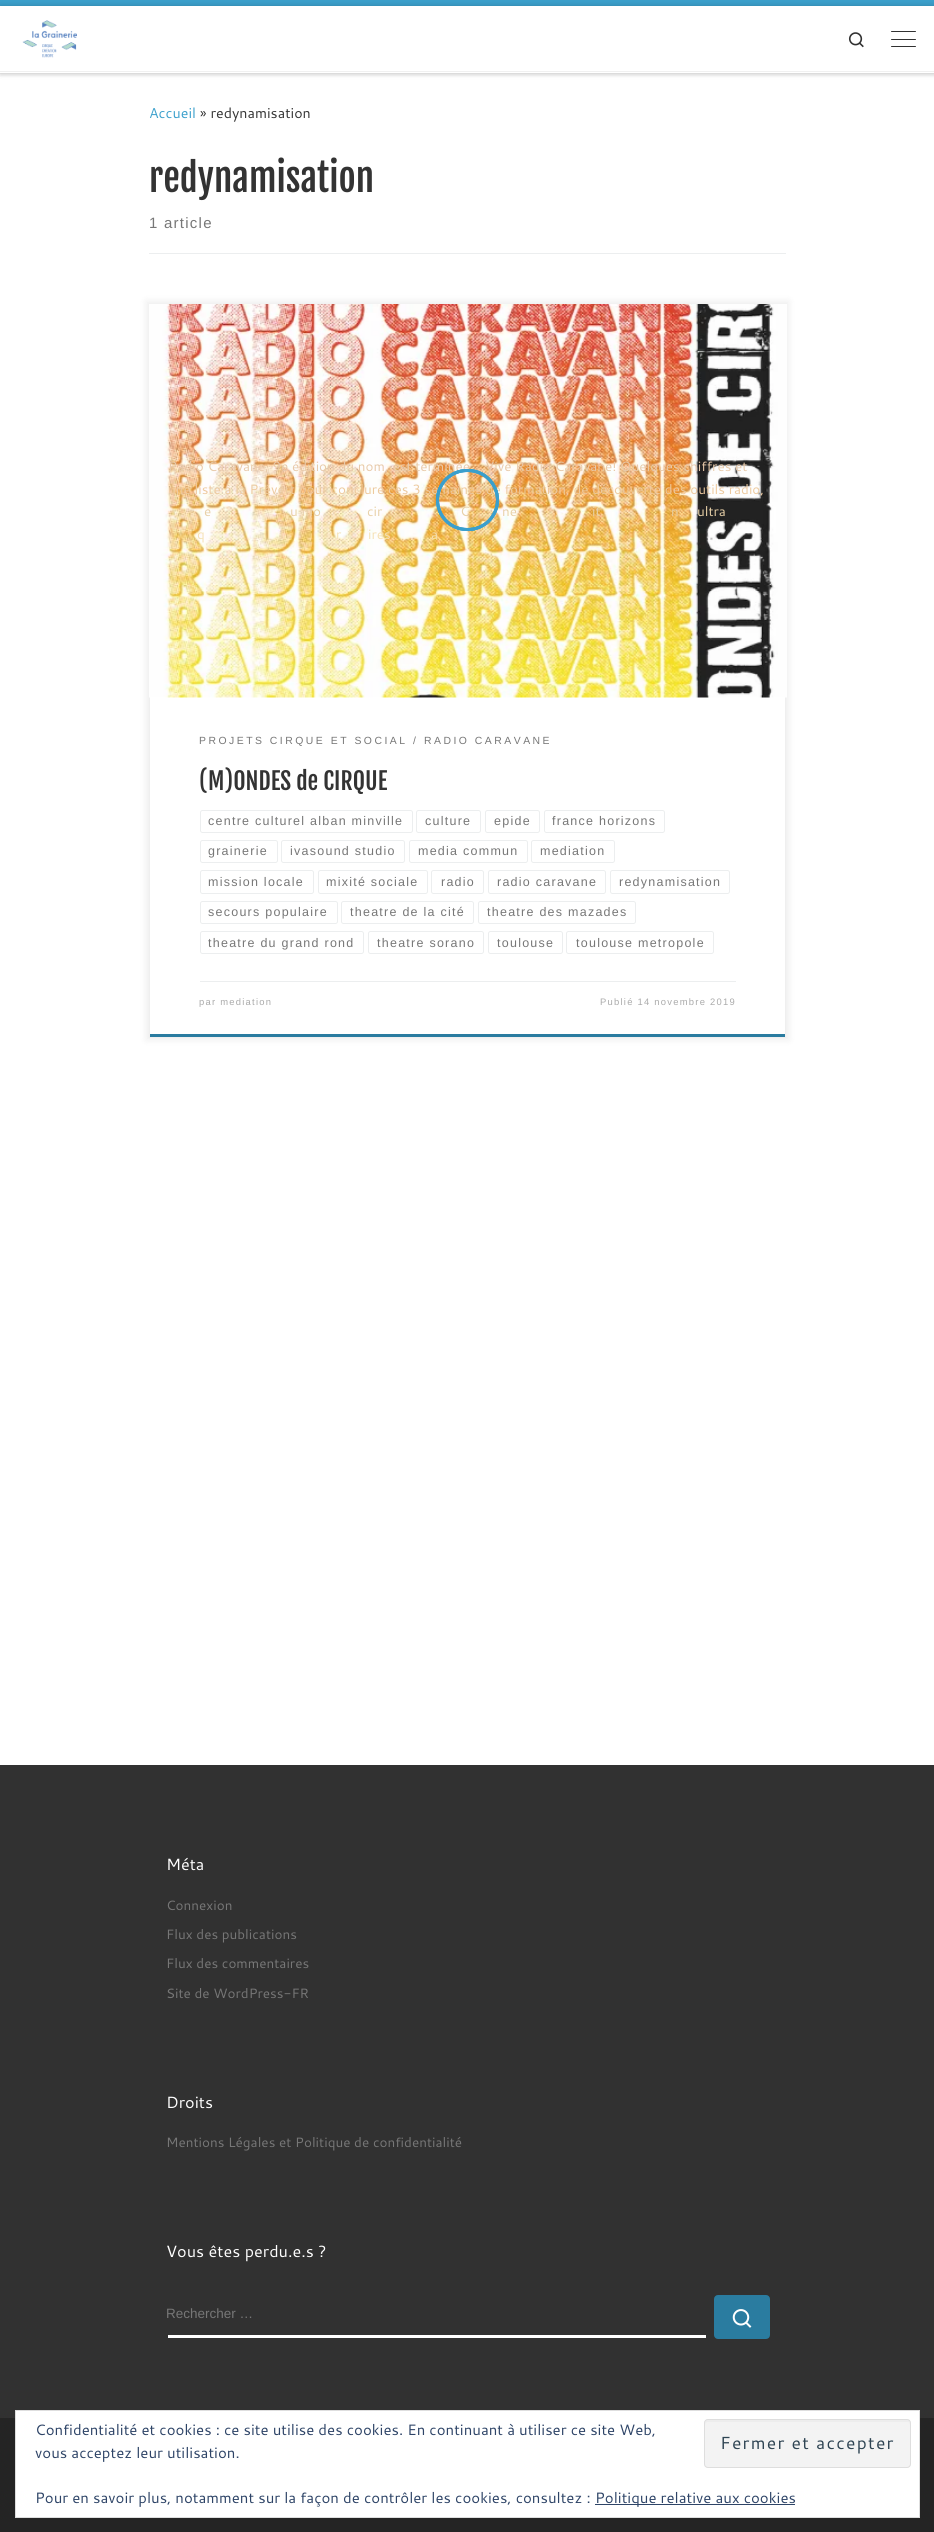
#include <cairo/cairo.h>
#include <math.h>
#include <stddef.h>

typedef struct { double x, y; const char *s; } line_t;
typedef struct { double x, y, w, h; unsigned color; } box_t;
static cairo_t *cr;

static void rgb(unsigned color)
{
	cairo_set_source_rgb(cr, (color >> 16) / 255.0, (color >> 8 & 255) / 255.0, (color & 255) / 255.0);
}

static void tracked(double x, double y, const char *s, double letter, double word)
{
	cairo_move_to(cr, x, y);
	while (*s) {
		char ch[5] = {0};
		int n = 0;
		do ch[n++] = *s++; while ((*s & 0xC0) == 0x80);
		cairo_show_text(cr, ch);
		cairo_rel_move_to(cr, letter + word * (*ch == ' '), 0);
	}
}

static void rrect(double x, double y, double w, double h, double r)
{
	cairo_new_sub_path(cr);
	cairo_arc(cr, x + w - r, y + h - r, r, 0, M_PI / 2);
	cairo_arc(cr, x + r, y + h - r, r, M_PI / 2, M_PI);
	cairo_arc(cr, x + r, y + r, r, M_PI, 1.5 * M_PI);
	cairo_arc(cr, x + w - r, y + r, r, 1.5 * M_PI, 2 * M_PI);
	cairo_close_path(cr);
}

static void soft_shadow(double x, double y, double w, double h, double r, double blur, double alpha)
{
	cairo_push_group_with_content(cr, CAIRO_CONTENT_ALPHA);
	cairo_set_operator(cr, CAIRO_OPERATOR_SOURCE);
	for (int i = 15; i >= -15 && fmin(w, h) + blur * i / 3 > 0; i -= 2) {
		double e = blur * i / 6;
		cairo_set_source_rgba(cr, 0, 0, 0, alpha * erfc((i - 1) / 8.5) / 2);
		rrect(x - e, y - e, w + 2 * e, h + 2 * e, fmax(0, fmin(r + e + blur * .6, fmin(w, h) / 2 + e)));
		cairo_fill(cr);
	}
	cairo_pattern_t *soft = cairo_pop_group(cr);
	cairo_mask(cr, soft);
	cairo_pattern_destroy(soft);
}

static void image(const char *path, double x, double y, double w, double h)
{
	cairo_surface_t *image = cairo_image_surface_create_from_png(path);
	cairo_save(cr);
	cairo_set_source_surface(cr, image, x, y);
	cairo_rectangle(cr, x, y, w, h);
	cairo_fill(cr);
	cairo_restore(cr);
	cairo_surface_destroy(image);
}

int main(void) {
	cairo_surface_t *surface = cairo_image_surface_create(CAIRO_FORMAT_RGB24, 934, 2532);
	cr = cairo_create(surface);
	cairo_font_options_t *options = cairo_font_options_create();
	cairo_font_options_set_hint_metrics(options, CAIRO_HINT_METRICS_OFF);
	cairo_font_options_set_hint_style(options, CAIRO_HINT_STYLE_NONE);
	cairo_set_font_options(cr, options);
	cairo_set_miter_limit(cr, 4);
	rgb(0xffffff);
	cairo_paint(cr);
	rgb(0x666666);
	soft_shadow(0, 3, 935, 73, 0, 1, 0.08);
	rgb(0x3ba0cc);
	cairo_rectangle(cr, 0, 0, 934, 6);
	cairo_fill(cr);
	rgb(0xececec);
	cairo_rectangle(cr, 0, 73, 934, 1);
	cairo_fill(cr);
	cairo_set_source_rgba(cr, 1, 1, 1, 0.15);
	cairo_rectangle(cr, 0, 73, 934, 1);
	cairo_fill(cr);
	rgb(0x000000);
	soft_shadow(0, 6, 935, 67, 0, 3, 0.2);
	rgb(0xffffff);
	cairo_rectangle(cr, 0, 6, 934, 67);
	cairo_fill(cr);
	image("img/1.png", 22, 20, 55, 38);
	image("img/2.png", 848, 32, 16, 16);
	rgb(0x313131);
	rrect(891, 31, 25, 1, 0.5);
	cairo_fill(cr);
	rrect(891, 39, 25, 1, 0.5);
	cairo_fill(cr);
	rrect(891, 46, 25, 1, 0.5);
	cairo_fill(cr);
	rgb(0xf0f0f0);
	cairo_rectangle(cr, 0, 71, 934, 1);
	cairo_fill(cr);
	rgb(0xeceeef);
	cairo_rectangle(cr, 149, 253, 637, 1);
	cairo_fill(cr);
	rgb(0x000000);
	soft_shadow(146, 301, 643, 739, 0, 4, 0.07);
	rgb(0xffffff);
	cairo_rectangle(cr, 150, 697, 635, 337);
	cairo_fill(cr);
	rgb(0x2a7ca0);
	cairo_rectangle(cr, 149, 1034, 637, 3);
	cairo_fill(cr);
	rrect(200.5, 810.5, 212, 22, 2);
	rgb(0xeceeef);
	cairo_set_line_width(cr, 1);
	cairo_stroke(cr);
	rrect(416.5, 810.5, 64, 22, 2);
	cairo_stroke(cr);
	rrect(485.5, 810.5, 54, 22, 2);
	cairo_stroke(cr);
	rrect(544.5, 810.5, 120, 22, 2);
	cairo_stroke(cr);
	rrect(200.5, 840.5, 77, 22, 2);
	cairo_stroke(cr);
	rrect(281.5, 840.5, 123, 22, 2);
	cairo_stroke(cr);
	rrect(409.5, 840.5, 118, 22, 2);
	cairo_stroke(cr);
	rrect(531.5, 840.5, 83, 22, 2);
	cairo_stroke(cr);
	rrect(200.5, 870.5, 113, 23, 2);
	cairo_stroke(cr);
	rrect(318.5, 870.5, 109, 23, 2);
	cairo_stroke(cr);
	rrect(431.5, 870.5, 52, 23, 2);
	cairo_stroke(cr);
	rrect(488.5, 870.5, 117, 23, 2);
	cairo_stroke(cr);
	rrect(610.5, 870.5, 119, 23, 2);
	cairo_stroke(cr);
	rrect(200.5, 901.5, 137, 22, 2);
	cairo_stroke(cr);
	rrect(341.5, 901.5, 132, 22, 2);
	cairo_stroke(cr);
	rrect(478.5, 901.5, 157, 22, 2);
	cairo_stroke(cr);
	rrect(200.5, 931.5, 163, 22, 2);
	cairo_stroke(cr);
	rrect(368.5, 931.5, 115, 22, 2);
	cairo_stroke(cr);
	rrect(488.5, 931.5, 74, 22, 2);
	cairo_stroke(cr);
	rrect(566.5, 931.5, 147, 22, 2);
	cairo_stroke(cr);
	cairo_rectangle(cr, 149.5, 304.5, 636, 733);
	rgb(0xefefef);
	cairo_stroke(cr);
	image("img/3.png", 149, 304, 638, 394);
	{
		static const box_t items[] = {
			{200, 981, 536, 1, 0xeceeef},
			{0, 1765, 934, 653, 0x313131},
			{168, 2335, 538, 3, 0xffffff},
		};
		for (size_t i = 0; i < sizeof items / sizeof *items; i++) {
			rgb(items[i].color);
			cairo_rectangle(cr, items[i].x, items[i].y, items[i].w, items[i].h);
			cairo_fill(cr);
		}
	}
	rgb(0x2a7ca0);
	rrect(715.5, 2296.5, 53, 41, 2.5);
	cairo_fill_preserve(cr);
	cairo_set_line_width(cr, 3);
	cairo_stroke(cr);
	image("img/4.png", 732, 2309, 20, 19);
	rgb(0x242424);
	cairo_rectangle(cr, 0, 2418, 934, 114);
	cairo_fill(cr);
	rgb(0xffffff);
	cairo_rectangle(cr, 15.5, 2410.5, 904, 107);
	cairo_fill_preserve(cr);
	rgb(0xdedede);
	cairo_set_line_width(cr, 1);
	cairo_stroke(cr);
	rgb(0xf3f3f3);
	rrect(704, 2419, 207, 49, 4);
	cairo_fill(cr);
	rgb(0xededed);
	cairo_new_path(cr);
	cairo_move_to(cr, 708, 2422);
	cairo_line_to(cr, 908, 2422);
	cairo_curve_to(cr, 909, 2422, 910, 2424, 910, 2425);
	cairo_curve_to(cr, 910, 2423, 910, 2420, 908, 2420);
	cairo_line_to(cr, 708, 2420);
	cairo_curve_to(cr, 705, 2420, 705, 2423, 705, 2425);
	cairo_curve_to(cr, 705, 2424, 706, 2422, 708, 2422);
	cairo_close_path(cr);
	cairo_fill(cr);
	rrect(704.5, 2419.5, 206, 48, 3.5);
	rgb(0xdedede);
	cairo_stroke(cr);
	rgb(0x2e4467);
	cairo_rectangle(cr, 595, 2504, 200, 1);
	cairo_fill(cr);
	cairo_select_font_face(cr, "Cantarell", CAIRO_FONT_SLANT_NORMAL, CAIRO_FONT_WEIGHT_NORMAL);
	cairo_set_font_size(cr, 14.25);
	rgb(0x3ba0cc);
	cairo_move_to(cr, 149, 118);
	cairo_show_text(cr, "Accueil");
	rgb(0x333333);
	cairo_move_to(cr, 200, 118);
	cairo_show_text(cr, "» redynamisation");
	cairo_select_font_face(cr, "Fjalla One", CAIRO_FONT_SLANT_NORMAL, CAIRO_FONT_WEIGHT_NORMAL);
	cairo_set_font_size(cr, 37.25);
	cairo_move_to(cr, 149, 192);
	cairo_show_text(cr, "redynamisation");
	cairo_select_font_face(cr, "Liberation Sans", CAIRO_FONT_SLANT_NORMAL, CAIRO_FONT_WEIGHT_NORMAL);
	cairo_set_font_size(cr, 15);
	rgb(0x777777);
	tracked(149, 228, "1 article", 1.25, 0);
	cairo_select_font_face(cr, "Cantarell", CAIRO_FONT_SLANT_NORMAL, CAIRO_FONT_WEIGHT_NORMAL);
	cairo_set_font_size(cr, 13.5);
	rgb(0xe8caaa);
	cairo_move_to(cr, 168, 471);
	cairo_show_text(cr, "Radio Caravane, 9e édition du nom, est terminée… Vive Radio Caravane! Quelques chiffres et");
	rgb(0xedca9f);
	cairo_move_to(cr, 168, 494);
	cairo_show_text(cr, "une liste à la Prévert pour conclure ces 3 semaines de formation, de découverte des outils radio,");
	rgb(0xe8d0a7);
	{
		static const line_t items[] = {
			{204, 516, "e"},
			{290, 516, "u mo"},
			{367, 516, "cir"},
			{460, 516, "C"},
			{502, 516, "ne"},
			{555, 516, ","},
			{592, 516, "it"},
			{671, 516, "n"},
			{697, 516, "ultra"},
		};
		for (size_t i = 0; i < sizeof items / sizeof *items; i++) {
			cairo_move_to(cr, items[i].x, items[i].y);
			cairo_show_text(cr, items[i].s);
		}
	}
	rgb(0xf5e1b4);
	{
		static const line_t items[] = {
			{197, 539, "q"},
			{336, 539, "r"},
			{368, 539, "ires"},
			{431, 539, "a"},
		};
		for (size_t i = 0; i < sizeof items / sizeof *items; i++) {
			cairo_move_to(cr, items[i].x, items[i].y);
			cairo_show_text(cr, items[i].s);
		}
	}
	rrect(437.5, 470.5, 60, 59, 29.5);
	cairo_set_source_rgba(cr, 0.231, 0.627, 0.8, 0.99);
	cairo_set_line_width(cr, 3);
	cairo_stroke(cr);
	rrect(437.5, 470.5, 60, 59, 29.5);
	cairo_stroke(cr);
	rrect(437.5, 470.5, 60, 59, 29.5);
	cairo_stroke(cr);
	cairo_select_font_face(cr, "Liberation Sans", CAIRO_FONT_SLANT_NORMAL, CAIRO_FONT_WEIGHT_NORMAL);
	cairo_set_font_size(cr, 10.4);
	rgb(0x777777);
	{
		static const line_t items[] = {
			{199, 744, "PROJETS CIRQUE ET SOCIAL"},
			{413, 744, "/"},
			{424, 744, "RADIO CARAVANE"},
		};
		for (size_t i = 0; i < sizeof items / sizeof *items; i++) {
			tracked(items[i].x, items[i].y, items[i].s, 2.5, 0);
		}
	}
	cairo_select_font_face(cr, "Fjalla One", CAIRO_FONT_SLANT_NORMAL, CAIRO_FONT_WEIGHT_NORMAL);
	cairo_set_font_size(cr, 23.75);
	rgb(0x333333);
	cairo_move_to(cr, 199, 790);
	cairo_show_text(cr, "(M)ONDES de CIRQUE");
	cairo_select_font_face(cr, "Liberation Sans", CAIRO_FONT_SLANT_NORMAL, CAIRO_FONT_WEIGHT_NORMAL);
	cairo_set_font_size(cr, 12.5);
	rgb(0x777777);
	{
		static const line_t items[] = {
			{208, 825, "centre culturel alban minville"},
			{425, 825, "culture"},
			{494, 825, "epide"},
			{552, 825, "france horizons"},
			{208, 855, "grainerie"},
			{290, 855, "ivasound studio"},
			{418, 855, "media commun"},
			{540, 855, "mediation"},
			{208, 886, "mission locale"},
			{326, 886, "mixité sociale"},
			{441, 886, "radio"},
			{497, 886, "radio caravane"},
			{619, 886, "redynamisation"},
			{208, 916, "secours populaire"},
			{350, 916, "theatre de la cité"},
			{487, 916, "theatre des mazades"},
			{208, 947, "theatre du grand rond"},
			{377, 947, "theatre sorano"},
			{497, 947, "toulouse"},
			{576, 947, "toulouse metropole"},
		};
		for (size_t i = 0; i < sizeof items / sizeof *items; i++) {
			tracked(items[i].x, items[i].y, items[i].s, 1.25, 0);
		}
	}
	cairo_set_font_size(cr, 9.4);
	rgb(0xaaaaaa);
	tracked(199, 1005, "par mediation", 1.25, 0);
	tracked(600, 1005, "Publié 14 novembre 2019", 1.25, 0);
	cairo_select_font_face(cr, "Cantarell", CAIRO_FONT_SLANT_NORMAL, CAIRO_FONT_WEIGHT_NORMAL);
	cairo_set_font_size(cr, 16.25);
	rgb(0xffffff);
	cairo_move_to(cr, 166, 1870);
	cairo_show_text(cr, "Méta");
	cairo_set_font_size(cr, 13.5);
	rgb(0x777777);
	{
		static const line_t items[] = {
			{166, 1910, "Connexion"},
			{166, 1939, "Flux des publications"},
			{166, 1968, "Flux des commentaires"},
			{166, 1998, "Site de WordPress-FR"},
		};
		for (size_t i = 0; i < sizeof items / sizeof *items; i++) {
			cairo_move_to(cr, items[i].x, items[i].y);
			cairo_show_text(cr, items[i].s);
		}
	}
	cairo_set_font_size(cr, 16.25);
	rgb(0xffffff);
	cairo_move_to(cr, 166, 2108);
	cairo_show_text(cr, "Droits");
	cairo_set_font_size(cr, 13.5);
	rgb(0x777777);
	cairo_move_to(cr, 166, 2147);
	cairo_show_text(cr, "Mentions Légales et Politique de confidentialité");
	cairo_set_font_size(cr, 16.25);
	rgb(0xffffff);
	cairo_move_to(cr, 166, 2257);
	cairo_show_text(cr, "Vous êtes perdu.e.s ?");
	cairo_save(cr);
	cairo_new_path(cr);
	cairo_move_to(cr, 169, 2295);
	cairo_line_to(cr, 705, 2295);
	cairo_curve_to(cr, 706.5, 2295, 707.5, 2296, 707.5, 2297.5);
	cairo_line_to(cr, 707.5, 2335);
	cairo_line_to(cr, 166, 2335);
	cairo_line_to(cr, 166, 2297.5);
	cairo_curve_to(cr, 166, 2296, 167.5, 2295, 169, 2295);
	cairo_close_path(cr);
	cairo_clip(cr);
	cairo_select_font_face(cr, "Liberation Sans", CAIRO_FONT_SLANT_NORMAL, CAIRO_FONT_WEIGHT_NORMAL);
	cairo_set_font_size(cr, 13.5);
	rgb(0x777777);
	cairo_move_to(cr, 166, 2318);
	cairo_show_text(cr, "Rechercher …");
	cairo_restore(cr);
	cairo_set_font_size(cr, 15);
	rgb(0x2e4467);
	cairo_move_to(cr, 35, 2435);
	cairo_show_text(cr, "Confidentialité et cookies : ce site utilise des cookies. En continuant à utiliser ce site Web,");
	cairo_move_to(cr, 35, 2458);
	cairo_show_text(cr, "vous acceptez leur utilisation.");
	cairo_set_font_size(cr, 17.5);
	rgb(0x2e4453);
	tracked(720, 2449, "Fermer et accepter", 1.25, 0);
	cairo_set_font_size(cr, 15);
	rgb(0x2e4467);
	cairo_move_to(cr, 35, 2503);
	cairo_show_text(cr, "Pour en savoir plus, notamment sur la façon de contrôler les cookies, consultez :");
	cairo_move_to(cr, 595, 2503);
	cairo_show_text(cr, "Politique relative aux cookies");
	cairo_surface_write_to_png(surface, "page.png");
	cairo_font_options_destroy(options);
	cairo_destroy(cr);
	cairo_surface_destroy(surface);
	return 0;
}
